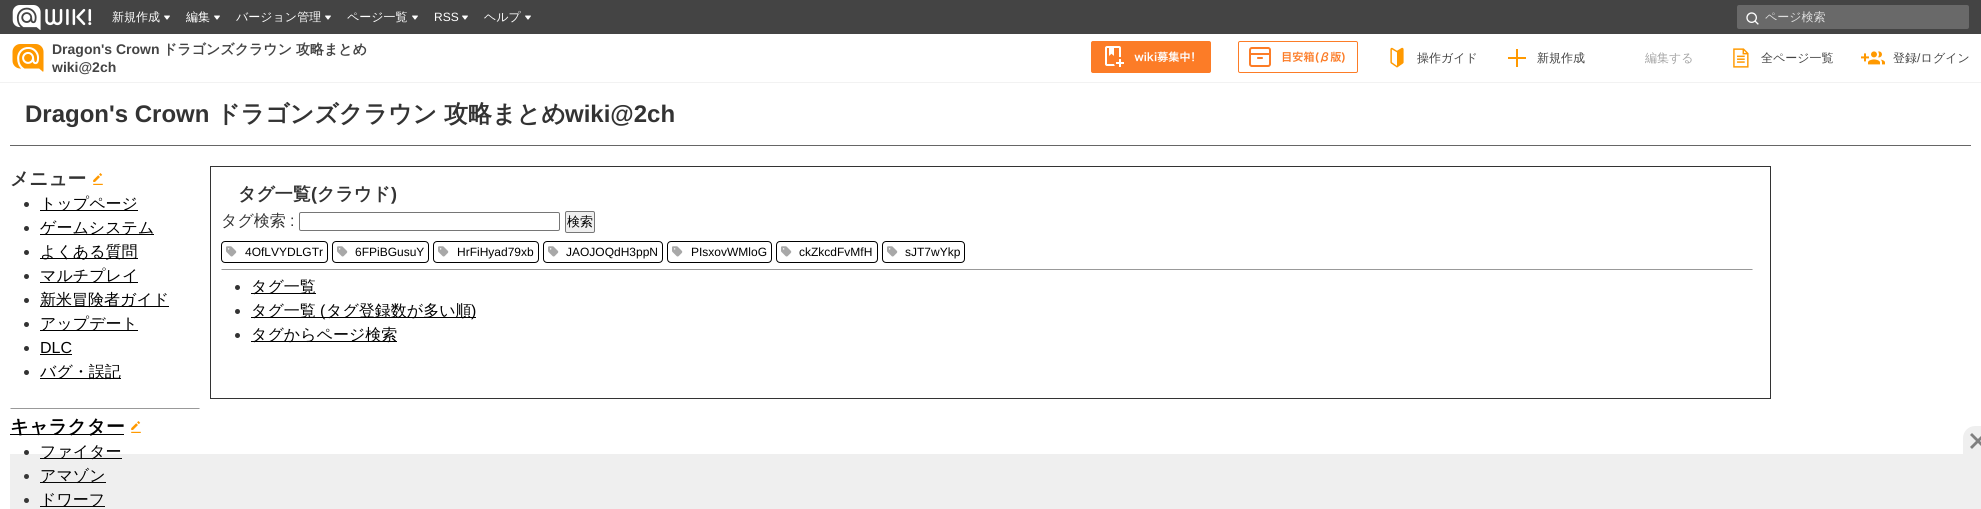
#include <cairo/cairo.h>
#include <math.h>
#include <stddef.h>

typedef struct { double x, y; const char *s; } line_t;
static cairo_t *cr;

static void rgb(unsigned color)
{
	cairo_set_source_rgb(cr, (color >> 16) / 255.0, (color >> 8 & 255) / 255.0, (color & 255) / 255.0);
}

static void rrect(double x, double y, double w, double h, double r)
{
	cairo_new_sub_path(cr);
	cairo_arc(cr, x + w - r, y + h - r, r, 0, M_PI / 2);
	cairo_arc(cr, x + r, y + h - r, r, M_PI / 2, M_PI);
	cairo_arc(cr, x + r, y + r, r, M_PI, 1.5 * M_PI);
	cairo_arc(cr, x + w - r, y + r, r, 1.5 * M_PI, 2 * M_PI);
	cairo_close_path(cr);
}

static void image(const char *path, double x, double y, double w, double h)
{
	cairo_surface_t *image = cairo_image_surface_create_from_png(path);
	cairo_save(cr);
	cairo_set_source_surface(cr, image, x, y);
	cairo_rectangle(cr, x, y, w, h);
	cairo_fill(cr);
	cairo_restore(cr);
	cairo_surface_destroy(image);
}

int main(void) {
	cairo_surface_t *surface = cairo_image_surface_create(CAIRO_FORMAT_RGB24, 1981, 509);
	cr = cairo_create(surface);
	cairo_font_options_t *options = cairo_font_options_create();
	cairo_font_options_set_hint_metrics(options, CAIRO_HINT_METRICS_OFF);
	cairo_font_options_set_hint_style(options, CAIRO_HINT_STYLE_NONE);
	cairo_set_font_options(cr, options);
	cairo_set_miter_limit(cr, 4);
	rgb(0xffffff);
	cairo_paint(cr);
	rgb(0x444444);
	cairo_rectangle(cr, 0, 0, 1981, 34);
	cairo_fill(cr);
	image("img/1.png", 12, 5, 80, 25);
	image("img/2.png", 164, 15, 6, 5);
	image("img/2.png", 214, 15, 6, 5);
	image("img/2.png", 325, 15, 6, 5);
	image("img/2.png", 412, 15, 6, 5);
	image("img/2.png", 462, 15, 6, 5);
	image("img/2.png", 525, 15, 6, 5);
	rgb(0x696969);
	rrect(1737, 5, 232, 24, 2);
	cairo_fill(cr);
	image("img/3.png", 1746, 12, 13, 13);
	rgb(0xf2f2f2);
	cairo_rectangle(cr, 0, 82, 1981, 1);
	cairo_fill(cr);
	image("img/4.png", 12, 44, 32, 28);
	image("img/5.png", 1091, 41, 120, 32);
	image("img/6.png", 1238, 41, 120, 32);
	image("img/7.png", 1390, 47, 14, 21);
	rgb(0xff9900);
	cairo_rectangle(cr, 1508, 57, 18, 2);
	cairo_fill(cr);
	cairo_rectangle(cr, 1516, 49, 2, 18);
	cairo_fill(cr);
	image("img/8.png", 1733, 48, 16, 20);
	image("img/9.png", 1861, 51, 24, 14);
	rgb(0x666666);
	cairo_rectangle(cr, 10, 145, 1961, 1);
	cairo_fill(cr);
	image("img/10.png", 93, 173, 10, 12);
	rgb(0x333333);
	cairo_arc(cr, 26.5, 204.5, 2.5, 0, 2 * M_PI);
	cairo_fill(cr);
	rgb(0x000000);
	cairo_rectangle(cr, 40, 210, 98, 1);
	cairo_fill(cr);
	rgb(0x333333);
	cairo_arc(cr, 26.5, 228.5, 2.5, 0, 2 * M_PI);
	cairo_fill(cr);
	rgb(0x000000);
	cairo_rectangle(cr, 40, 234, 114, 1);
	cairo_fill(cr);
	rgb(0x333333);
	cairo_arc(cr, 26.5, 252.5, 2.5, 0, 2 * M_PI);
	cairo_fill(cr);
	rgb(0x000000);
	cairo_rectangle(cr, 40, 258, 98, 1);
	cairo_fill(cr);
	rgb(0x333333);
	cairo_arc(cr, 26.5, 276.5, 2.5, 0, 2 * M_PI);
	cairo_fill(cr);
	rgb(0x000000);
	cairo_rectangle(cr, 40, 282, 98, 1);
	cairo_fill(cr);
	rgb(0x333333);
	cairo_arc(cr, 26.5, 300.5, 2.5, 0, 2 * M_PI);
	cairo_fill(cr);
	rgb(0x000000);
	cairo_rectangle(cr, 40, 306, 129, 1);
	cairo_fill(cr);
	rgb(0x333333);
	cairo_arc(cr, 26.5, 324.5, 2.5, 0, 2 * M_PI);
	cairo_fill(cr);
	rgb(0x000000);
	cairo_rectangle(cr, 40, 330, 98, 1);
	cairo_fill(cr);
	rgb(0x333333);
	cairo_arc(cr, 26.5, 348.5, 2.5, 0, 2 * M_PI);
	cairo_fill(cr);
	rgb(0x000000);
	cairo_rectangle(cr, 40, 354, 32, 1);
	cairo_fill(cr);
	rgb(0x333333);
	cairo_arc(cr, 26.5, 372.5, 2.5, 0, 2 * M_PI);
	cairo_fill(cr);
	rgb(0x000000);
	cairo_rectangle(cr, 40, 378, 81, 1);
	cairo_fill(cr);
	rgb(0x999999);
	cairo_new_path(cr);
	cairo_move_to(cr, 200, 409);
	cairo_line_to(cr, 10, 409);
	cairo_line_to(cr, 11, 408);
	cairo_line_to(cr, 199, 408);
	cairo_close_path(cr);
	cairo_fill(cr);
	rgb(0x000000);
	cairo_rectangle(cr, 10, 434, 114, 1);
	cairo_fill(cr);
	image("img/10.png", 131, 421, 10, 12);
	rgb(0x333333);
	cairo_arc(cr, 26.5, 452.5, 2.5, 0, 2 * M_PI);
	cairo_fill(cr);
	rgb(0x000000);
	cairo_rectangle(cr, 40, 458, 82, 1);
	cairo_fill(cr);
	rgb(0x333333);
	cairo_arc(cr, 26.5, 476.5, 2.5, 0, 2 * M_PI);
	cairo_fill(cr);
	rgb(0x000000);
	cairo_rectangle(cr, 40, 482, 66, 1);
	cairo_fill(cr);
	rgb(0x333333);
	cairo_arc(cr, 26.5, 500.5, 2.5, 0, 2 * M_PI);
	cairo_fill(cr);
	rgb(0x000000);
	cairo_rectangle(cr, 40, 506, 65, 1);
	cairo_fill(cr);
	cairo_rectangle(cr, 210.5, 166.5, 1560, 232);
	rgb(0x333333);
	cairo_set_line_width(cr, 1);
	cairo_stroke(cr);
	rrect(299.5, 212.5, 260, 18, 1.5);
	rgb(0x767676);
	cairo_stroke(cr);
	rgb(0xefefef);
	rrect(565.5, 211.5, 29, 21, 1.5);
	cairo_fill_preserve(cr);
	rgb(0x767676);
	cairo_stroke(cr);
	rrect(221.5, 241.5, 106, 21, 3.5);
	rgb(0x000000);
	cairo_stroke(cr);
	image("img/11.png", 226, 246, 11, 11);
	rrect(332.5, 241.5, 96, 21, 3.5);
	cairo_stroke(cr);
	image("img/11.png", 337, 246, 11, 11);
	rrect(433.5, 241.5, 105, 21, 3.5);
	cairo_stroke(cr);
	image("img/11.png", 438, 246, 11, 11);
	rrect(543.5, 241.5, 119, 21, 3.5);
	cairo_stroke(cr);
	image("img/11.png", 548, 246, 11, 11);
	rrect(667.5, 241.5, 104, 21, 3.5);
	cairo_stroke(cr);
	image("img/11.png", 672, 246, 11, 11);
	rrect(776.5, 241.5, 101, 21, 3.5);
	cairo_stroke(cr);
	image("img/11.png", 781, 246, 11, 11);
	rrect(882.5, 241.5, 82, 21, 3.5);
	cairo_stroke(cr);
	image("img/11.png", 887, 246, 11, 11);
	rgb(0x999999);
	cairo_new_path(cr);
	cairo_move_to(cr, 1753, 270);
	cairo_line_to(cr, 221, 270);
	cairo_line_to(cr, 222, 269);
	cairo_line_to(cr, 1752, 269);
	cairo_close_path(cr);
	cairo_fill(cr);
	rgb(0x333333);
	cairo_arc(cr, 237.5, 287.5, 2.5, 0, 2 * M_PI);
	cairo_fill(cr);
	rgb(0x000000);
	cairo_rectangle(cr, 251, 293, 65, 1);
	cairo_fill(cr);
	rgb(0x333333);
	cairo_arc(cr, 237.5, 311.5, 2.5, 0, 2 * M_PI);
	cairo_fill(cr);
	rgb(0x000000);
	cairo_rectangle(cr, 251, 317, 225, 1);
	cairo_fill(cr);
	rgb(0x333333);
	cairo_arc(cr, 237.5, 335.5, 2.5, 0, 2 * M_PI);
	cairo_fill(cr);
	rgb(0x000000);
	cairo_rectangle(cr, 251, 341, 146, 1);
	cairo_fill(cr);
	cairo_set_source_rgba(cr, 0.388, 0.388, 0.388, 0.1);
	cairo_rectangle(cr, 10, 454, 1971, 55);
	cairo_fill(cr);
	rgb(0xefefef);
	cairo_new_path(cr);
	cairo_move_to(cr, 1975, 426);
	cairo_line_to(cr, 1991, 426);
	cairo_line_to(cr, 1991, 454);
	cairo_line_to(cr, 1963, 454);
	cairo_line_to(cr, 1963, 438);
	cairo_curve_to(cr, 1963, 431.5, 1968.5, 426, 1975, 426);
	cairo_close_path(cr);
	cairo_fill(cr);
	image("img/12.png", 1970, 433, 11, 16);
	cairo_select_font_face(cr, "WenQuanYi Zen Hei Medium", CAIRO_FONT_SLANT_NORMAL, CAIRO_FONT_WEIGHT_NORMAL);
	cairo_set_font_size(cr, 12);
	rgb(0xffffff);
	{
		static const line_t items[] = {
			{112, 21, "新規作成"},
			{186, 21, "編集"},
			{236, 21, "バージョン管理"},
			{347, 21, "ページ一覧"},
		};
		for (size_t i = 0; i < sizeof items / sizeof *items; i++) {
			cairo_move_to(cr, items[i].x, items[i].y);
			cairo_show_text(cr, items[i].s);
		}
	}
	cairo_select_font_face(cr, "Liberation Sans", CAIRO_FONT_SLANT_NORMAL, CAIRO_FONT_WEIGHT_NORMAL);
	cairo_move_to(cr, 434, 21);
	cairo_show_text(cr, "RSS");
	cairo_select_font_face(cr, "WenQuanYi Zen Hei Medium", CAIRO_FONT_SLANT_NORMAL, CAIRO_FONT_WEIGHT_NORMAL);
	cairo_move_to(cr, 484, 21);
	cairo_show_text(cr, "ヘルプ");
	rgb(0xdddddd);
	cairo_move_to(cr, 1765, 21);
	cairo_show_text(cr, "ページ検索");
	cairo_select_font_face(cr, "Liberation Sans", CAIRO_FONT_SLANT_NORMAL, CAIRO_FONT_WEIGHT_BOLD);
	cairo_set_font_size(cr, 14);
	rgb(0x444444);
	cairo_move_to(cr, 52, 54);
	cairo_show_text(cr, "Dragon's Crown");
	cairo_select_font_face(cr, "WenQuanYi Zen Hei", CAIRO_FONT_SLANT_NORMAL, CAIRO_FONT_WEIGHT_BOLD);
	cairo_move_to(cr, 163, 54);
	cairo_show_text(cr, "ドラゴンズクラウン");
	cairo_move_to(cr, 296, 54);
	cairo_show_text(cr, "攻略まとめ");
	cairo_select_font_face(cr, "Liberation Sans", CAIRO_FONT_SLANT_NORMAL, CAIRO_FONT_WEIGHT_BOLD);
	cairo_move_to(cr, 52, 72);
	cairo_show_text(cr, "wiki@2ch");
	cairo_select_font_face(cr, "WenQuanYi Zen Hei Medium", CAIRO_FONT_SLANT_NORMAL, CAIRO_FONT_WEIGHT_NORMAL);
	cairo_set_font_size(cr, 12);
	cairo_move_to(cr, 1417, 62);
	cairo_show_text(cr, "操作ガイド");
	cairo_move_to(cr, 1537, 62);
	cairo_show_text(cr, "新規作成");
	rgb(0xa8a8a8);
	cairo_move_to(cr, 1645, 62);
	cairo_show_text(cr, "編集する");
	rgb(0x444444);
	cairo_move_to(cr, 1761, 62);
	cairo_show_text(cr, "全ページ一覧");
	cairo_move_to(cr, 1893, 62);
	cairo_show_text(cr, "登録 ログイン");
	cairo_select_font_face(cr, "Liberation Sans", CAIRO_FONT_SLANT_NORMAL, CAIRO_FONT_WEIGHT_NORMAL);
	cairo_move_to(cr, 1917, 62);
	cairo_show_text(cr, "/");
	cairo_select_font_face(cr, "Liberation Sans", CAIRO_FONT_SLANT_NORMAL, CAIRO_FONT_WEIGHT_BOLD);
	cairo_set_font_size(cr, 24);
	rgb(0x333333);
	cairo_move_to(cr, 25, 122);
	cairo_show_text(cr, "Dragon's Crown");
	cairo_select_font_face(cr, "WenQuanYi Zen Hei", CAIRO_FONT_SLANT_NORMAL, CAIRO_FONT_WEIGHT_BOLD);
	cairo_move_to(cr, 216, 122);
	cairo_show_text(cr, "ドラゴンズクラウン");
	cairo_move_to(cr, 444, 122);
	cairo_show_text(cr, "攻略まとめ");
	cairo_select_font_face(cr, "Liberation Sans", CAIRO_FONT_SLANT_NORMAL, CAIRO_FONT_WEIGHT_BOLD);
	cairo_move_to(cr, 565, 122);
	cairo_show_text(cr, "wiki@2ch");
	cairo_select_font_face(cr, "WenQuanYi Zen Hei", CAIRO_FONT_SLANT_NORMAL, CAIRO_FONT_WEIGHT_BOLD);
	cairo_set_font_size(cr, 18.75);
	cairo_move_to(cr, 10, 185);
	cairo_show_text(cr, "メニュー");
	cairo_select_font_face(cr, "WenQuanYi Zen Hei Medium", CAIRO_FONT_SLANT_NORMAL, CAIRO_FONT_WEIGHT_NORMAL);
	cairo_set_font_size(cr, 16);
	rgb(0x000000);
	{
		static const line_t items[] = {
			{40, 209, "トップページ"},
			{40, 233, "ゲームシステム"},
			{40, 257, "よくある質問"},
			{40, 281, "マルチプレイ"},
			{40, 305, "新米冒険者ガイド"},
			{40, 329, "アップデート"},
		};
		for (size_t i = 0; i < sizeof items / sizeof *items; i++) {
			cairo_move_to(cr, items[i].x, items[i].y);
			cairo_show_text(cr, items[i].s);
		}
	}
	cairo_select_font_face(cr, "Liberation Sans", CAIRO_FONT_SLANT_NORMAL, CAIRO_FONT_WEIGHT_NORMAL);
	cairo_move_to(cr, 40, 353);
	cairo_show_text(cr, "DLC");
	cairo_select_font_face(cr, "WenQuanYi Zen Hei Medium", CAIRO_FONT_SLANT_NORMAL, CAIRO_FONT_WEIGHT_NORMAL);
	cairo_move_to(cr, 40, 377);
	cairo_show_text(cr, "バグ・誤記");
	cairo_select_font_face(cr, "WenQuanYi Zen Hei", CAIRO_FONT_SLANT_NORMAL, CAIRO_FONT_WEIGHT_BOLD);
	cairo_set_font_size(cr, 18.75);
	cairo_move_to(cr, 10, 433);
	cairo_show_text(cr, "キャラクター");
	cairo_select_font_face(cr, "WenQuanYi Zen Hei Medium", CAIRO_FONT_SLANT_NORMAL, CAIRO_FONT_WEIGHT_NORMAL);
	cairo_set_font_size(cr, 16);
	{
		static const line_t items[] = {
			{40, 457, "ファイター"},
			{40, 481, "アマゾン"},
			{40, 505, "ドワーフ"},
		};
		for (size_t i = 0; i < sizeof items / sizeof *items; i++) {
			cairo_move_to(cr, items[i].x, items[i].y);
			cairo_show_text(cr, items[i].s);
		}
	}
	cairo_select_font_face(cr, "WenQuanYi Zen Hei", CAIRO_FONT_SLANT_NORMAL, CAIRO_FONT_WEIGHT_BOLD);
	cairo_set_font_size(cr, 18);
	rgb(0x333333);
	cairo_move_to(cr, 238, 200);
	cairo_show_text(cr, "タグ一覧");
	cairo_select_font_face(cr, "Liberation Sans", CAIRO_FONT_SLANT_NORMAL, CAIRO_FONT_WEIGHT_BOLD);
	cairo_move_to(cr, 311, 200);
	cairo_show_text(cr, "(");
	cairo_select_font_face(cr, "WenQuanYi Zen Hei", CAIRO_FONT_SLANT_NORMAL, CAIRO_FONT_WEIGHT_BOLD);
	cairo_move_to(cr, 317, 200);
	cairo_show_text(cr, "クラウド");
	cairo_select_font_face(cr, "Liberation Sans", CAIRO_FONT_SLANT_NORMAL, CAIRO_FONT_WEIGHT_BOLD);
	cairo_move_to(cr, 391, 200);
	cairo_show_text(cr, ")");
	cairo_select_font_face(cr, "WenQuanYi Zen Hei Medium", CAIRO_FONT_SLANT_NORMAL, CAIRO_FONT_WEIGHT_NORMAL);
	cairo_set_font_size(cr, 16);
	cairo_move_to(cr, 221, 226);
	cairo_show_text(cr, "タグ検索");
	cairo_select_font_face(cr, "Liberation Sans", CAIRO_FONT_SLANT_NORMAL, CAIRO_FONT_WEIGHT_NORMAL);
	cairo_move_to(cr, 290, 226);
	cairo_show_text(cr, ":");
	cairo_select_font_face(cr, "WenQuanYi Zen Hei Medium", CAIRO_FONT_SLANT_NORMAL, CAIRO_FONT_WEIGHT_NORMAL);
	cairo_set_font_size(cr, 13);
	rgb(0x000000);
	cairo_move_to(cr, 567, 226);
	cairo_show_text(cr, "検索");
	cairo_select_font_face(cr, "Liberation Sans", CAIRO_FONT_SLANT_NORMAL, CAIRO_FONT_WEIGHT_NORMAL);
	cairo_set_font_size(cr, 12);
	{
		static const line_t items[] = {
			{245, 256, "4OfLVYDLGTr"},
			{355, 256, "6FPiBGusuY"},
			{457, 256, "HrFiHyad79xb"},
			{566, 256, "JAOJOQdH3ppN"},
			{691, 256, "PIsxovWMloG"},
			{799, 256, "ckZkcdFvMfH"},
			{905, 256, "sJT7wYkp"},
		};
		for (size_t i = 0; i < sizeof items / sizeof *items; i++) {
			cairo_move_to(cr, items[i].x, items[i].y);
			cairo_show_text(cr, items[i].s);
		}
	}
	cairo_select_font_face(cr, "WenQuanYi Zen Hei Medium", CAIRO_FONT_SLANT_NORMAL, CAIRO_FONT_WEIGHT_NORMAL);
	cairo_set_font_size(cr, 16);
	cairo_move_to(cr, 251, 292);
	cairo_show_text(cr, "タグ一覧");
	cairo_move_to(cr, 251, 316);
	cairo_show_text(cr, "タグ一覧");
	cairo_select_font_face(cr, "Liberation Sans", CAIRO_FONT_SLANT_NORMAL, CAIRO_FONT_WEIGHT_NORMAL);
	cairo_move_to(cr, 320, 316);
	cairo_show_text(cr, "(");
	cairo_select_font_face(cr, "WenQuanYi Zen Hei Medium", CAIRO_FONT_SLANT_NORMAL, CAIRO_FONT_WEIGHT_NORMAL);
	cairo_move_to(cr, 326, 316);
	cairo_show_text(cr, "タグ登録数が多い順");
	cairo_select_font_face(cr, "Liberation Sans", CAIRO_FONT_SLANT_NORMAL, CAIRO_FONT_WEIGHT_NORMAL);
	cairo_move_to(cr, 471, 316);
	cairo_show_text(cr, ")");
	cairo_select_font_face(cr, "WenQuanYi Zen Hei Medium", CAIRO_FONT_SLANT_NORMAL, CAIRO_FONT_WEIGHT_NORMAL);
	cairo_move_to(cr, 251, 340);
	cairo_show_text(cr, "タグからページ検索");
	cairo_surface_write_to_png(surface, "page.png");
	cairo_font_options_destroy(options);
	cairo_destroy(cr);
	cairo_surface_destroy(surface);
	return 0;
}
